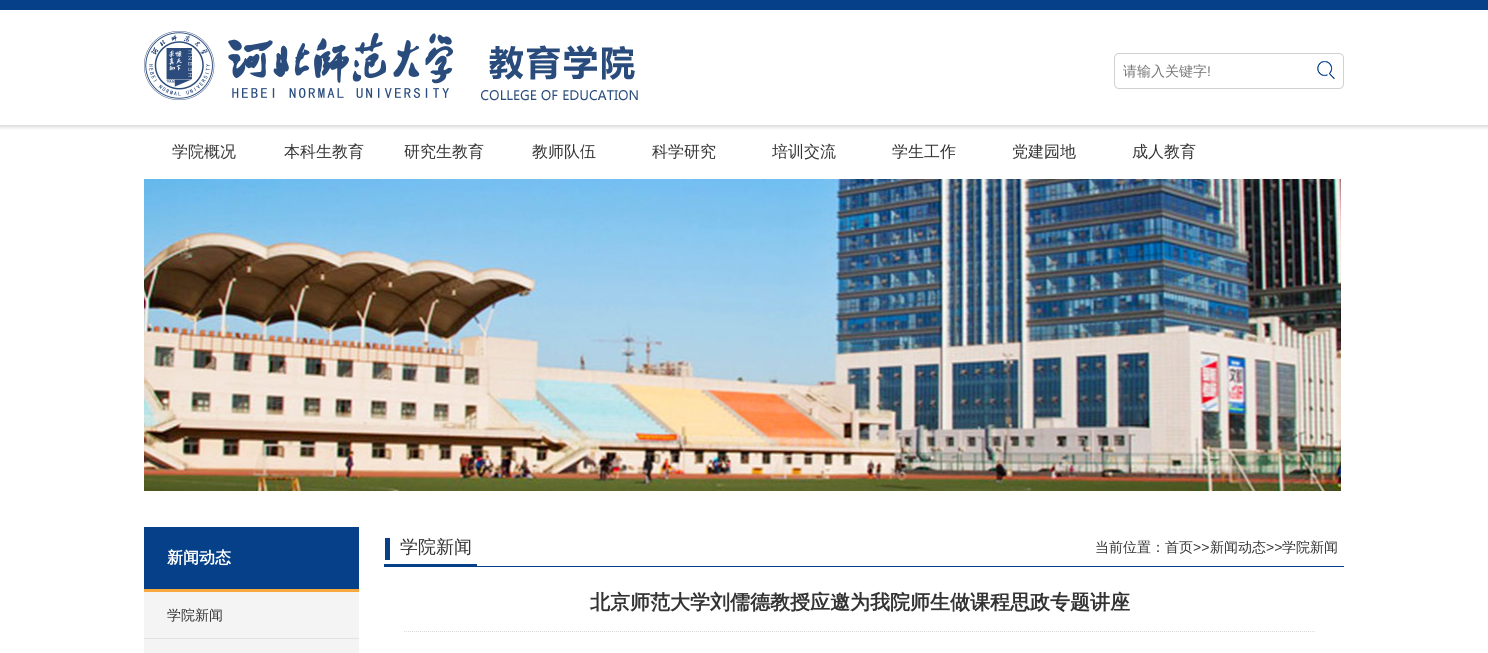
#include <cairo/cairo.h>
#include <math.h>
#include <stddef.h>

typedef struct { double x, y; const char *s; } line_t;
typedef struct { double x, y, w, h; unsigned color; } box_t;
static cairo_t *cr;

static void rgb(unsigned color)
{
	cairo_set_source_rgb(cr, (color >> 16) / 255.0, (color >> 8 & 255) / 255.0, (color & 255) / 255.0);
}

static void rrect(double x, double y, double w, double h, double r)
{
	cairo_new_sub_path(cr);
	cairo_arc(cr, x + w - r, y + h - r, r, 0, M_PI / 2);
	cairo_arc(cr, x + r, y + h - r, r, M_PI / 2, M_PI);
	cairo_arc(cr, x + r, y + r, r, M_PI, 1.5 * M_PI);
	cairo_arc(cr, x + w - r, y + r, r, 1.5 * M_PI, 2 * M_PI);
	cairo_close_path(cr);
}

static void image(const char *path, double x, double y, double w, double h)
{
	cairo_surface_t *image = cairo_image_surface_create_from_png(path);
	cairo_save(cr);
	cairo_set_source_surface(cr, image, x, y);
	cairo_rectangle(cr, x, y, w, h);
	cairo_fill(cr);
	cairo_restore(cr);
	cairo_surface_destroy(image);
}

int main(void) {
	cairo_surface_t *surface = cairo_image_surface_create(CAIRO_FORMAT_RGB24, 1488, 653);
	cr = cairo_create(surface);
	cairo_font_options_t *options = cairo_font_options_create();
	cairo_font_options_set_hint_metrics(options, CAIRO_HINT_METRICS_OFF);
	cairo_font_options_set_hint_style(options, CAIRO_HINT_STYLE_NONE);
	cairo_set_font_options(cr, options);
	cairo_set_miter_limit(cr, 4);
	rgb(0xffffff);
	cairo_paint(cr);
	rgb(0x064089);
	cairo_rectangle(cr, 0, 0, 1488, 10);
	cairo_fill(cr);
	image("img/1.png", 144, 31, 494, 70);
	rrect(1114.5, 53.5, 229, 35, 4.5);
	rgb(0xd1d1d1);
	cairo_set_line_width(cr, 1);
	cairo_stroke(cr);
	image("img/2.png", 1317, 61, 18, 18);
	image("img/3.png", 0, 125, 1488, 5);
	image("img/4.png", 144, 179, 1197, 312);
	{
		static const box_t items[] = {
			{144, 527, 215, 62, 0x064089},
			{144, 589, 215, 3, 0xf7a93e},
			{144, 592, 215, 46, 0xf4f4f4},
			{144, 638, 215, 1, 0xe2e2e2},
			{144, 639, 215, 14, 0xf4f4f4},
			{384, 566, 960, 1, 0x064089},
			{384, 564, 93, 2, 0x064089},
			{385, 538, 5, 22, 0x064089},
		};
		for (size_t i = 0; i < sizeof items / sizeof *items; i++) {
			rgb(items[i].color);
			cairo_rectangle(cr, items[i].x, items[i].y, items[i].w, items[i].h);
			cairo_fill(cr);
		}
	}
	cairo_new_path(cr);
	cairo_move_to(cr, 404, 631.5);
	cairo_line_to(cr, 1316, 631.5);
	rgb(0xdcdcdc);
	cairo_set_dash(cr, (double[]){1, 1}, 2, 0);
	cairo_stroke(cr);
	cairo_select_font_face(cr, "WenQuanYi Zen Hei Medium", CAIRO_FONT_SLANT_NORMAL, CAIRO_FONT_WEIGHT_NORMAL);
	cairo_set_font_size(cr, 14);
	rgb(0x757575);
	cairo_move_to(cr, 1123, 76);
	cairo_show_text(cr, "请输入关键字");
	cairo_select_font_face(cr, "Liberation Sans", CAIRO_FONT_SLANT_NORMAL, CAIRO_FONT_WEIGHT_NORMAL);
	cairo_move_to(cr, 1207, 76);
	cairo_show_text(cr, "!");
	cairo_select_font_face(cr, "WenQuanYi Zen Hei Medium", CAIRO_FONT_SLANT_NORMAL, CAIRO_FONT_WEIGHT_NORMAL);
	cairo_set_font_size(cr, 16);
	rgb(0x333333);
	{
		static const line_t items[] = {
			{172, 157, "学院概况"},
			{284, 157, "本科生教育"},
			{404, 157, "研究生教育"},
			{532, 157, "教师队伍"},
			{652, 157, "科学研究"},
			{772, 157, "培训交流"},
			{892, 157, "学生工作"},
			{1012, 157, "党建园地"},
			{1132, 157, "成人教育"},
		};
		for (size_t i = 0; i < sizeof items / sizeof *items; i++) {
			cairo_move_to(cr, items[i].x, items[i].y);
			cairo_show_text(cr, items[i].s);
		}
	}
	cairo_select_font_face(cr, "WenQuanYi Zen Hei", CAIRO_FONT_SLANT_NORMAL, CAIRO_FONT_WEIGHT_BOLD);
	rgb(0xffffff);
	cairo_move_to(cr, 167, 563);
	cairo_show_text(cr, "新闻动态");
	cairo_select_font_face(cr, "WenQuanYi Zen Hei Medium", CAIRO_FONT_SLANT_NORMAL, CAIRO_FONT_WEIGHT_NORMAL);
	cairo_set_font_size(cr, 14);
	rgb(0x333333);
	cairo_move_to(cr, 167, 620);
	cairo_show_text(cr, "学院新闻");
	cairo_set_font_size(cr, 18);
	cairo_move_to(cr, 400, 553);
	cairo_show_text(cr, "学院新闻");
	cairo_set_font_size(cr, 14);
	cairo_move_to(cr, 1095, 552);
	cairo_show_text(cr, "当前位置：首页");
	cairo_select_font_face(cr, "Liberation Sans", CAIRO_FONT_SLANT_NORMAL, CAIRO_FONT_WEIGHT_NORMAL);
	cairo_move_to(cr, 1193, 552);
	cairo_show_text(cr, ">>");
	cairo_select_font_face(cr, "WenQuanYi Zen Hei Medium", CAIRO_FONT_SLANT_NORMAL, CAIRO_FONT_WEIGHT_NORMAL);
	cairo_move_to(cr, 1210, 552);
	cairo_show_text(cr, "新闻动态");
	cairo_select_font_face(cr, "Liberation Sans", CAIRO_FONT_SLANT_NORMAL, CAIRO_FONT_WEIGHT_NORMAL);
	cairo_move_to(cr, 1266, 552);
	cairo_show_text(cr, ">>");
	cairo_select_font_face(cr, "WenQuanYi Zen Hei Medium", CAIRO_FONT_SLANT_NORMAL, CAIRO_FONT_WEIGHT_NORMAL);
	cairo_move_to(cr, 1282, 552);
	cairo_show_text(cr, "学院新闻");
	cairo_select_font_face(cr, "WenQuanYi Zen Hei", CAIRO_FONT_SLANT_NORMAL, CAIRO_FONT_WEIGHT_BOLD);
	cairo_set_font_size(cr, 20);
	cairo_move_to(cr, 590, 609);
	cairo_show_text(cr, "北京师范大学刘儒德教授应邀为我院师生做课程思政专题讲座");
	cairo_surface_write_to_png(surface, "page.png");
	cairo_font_options_destroy(options);
	cairo_destroy(cr);
	cairo_surface_destroy(surface);
	return 0;
}
